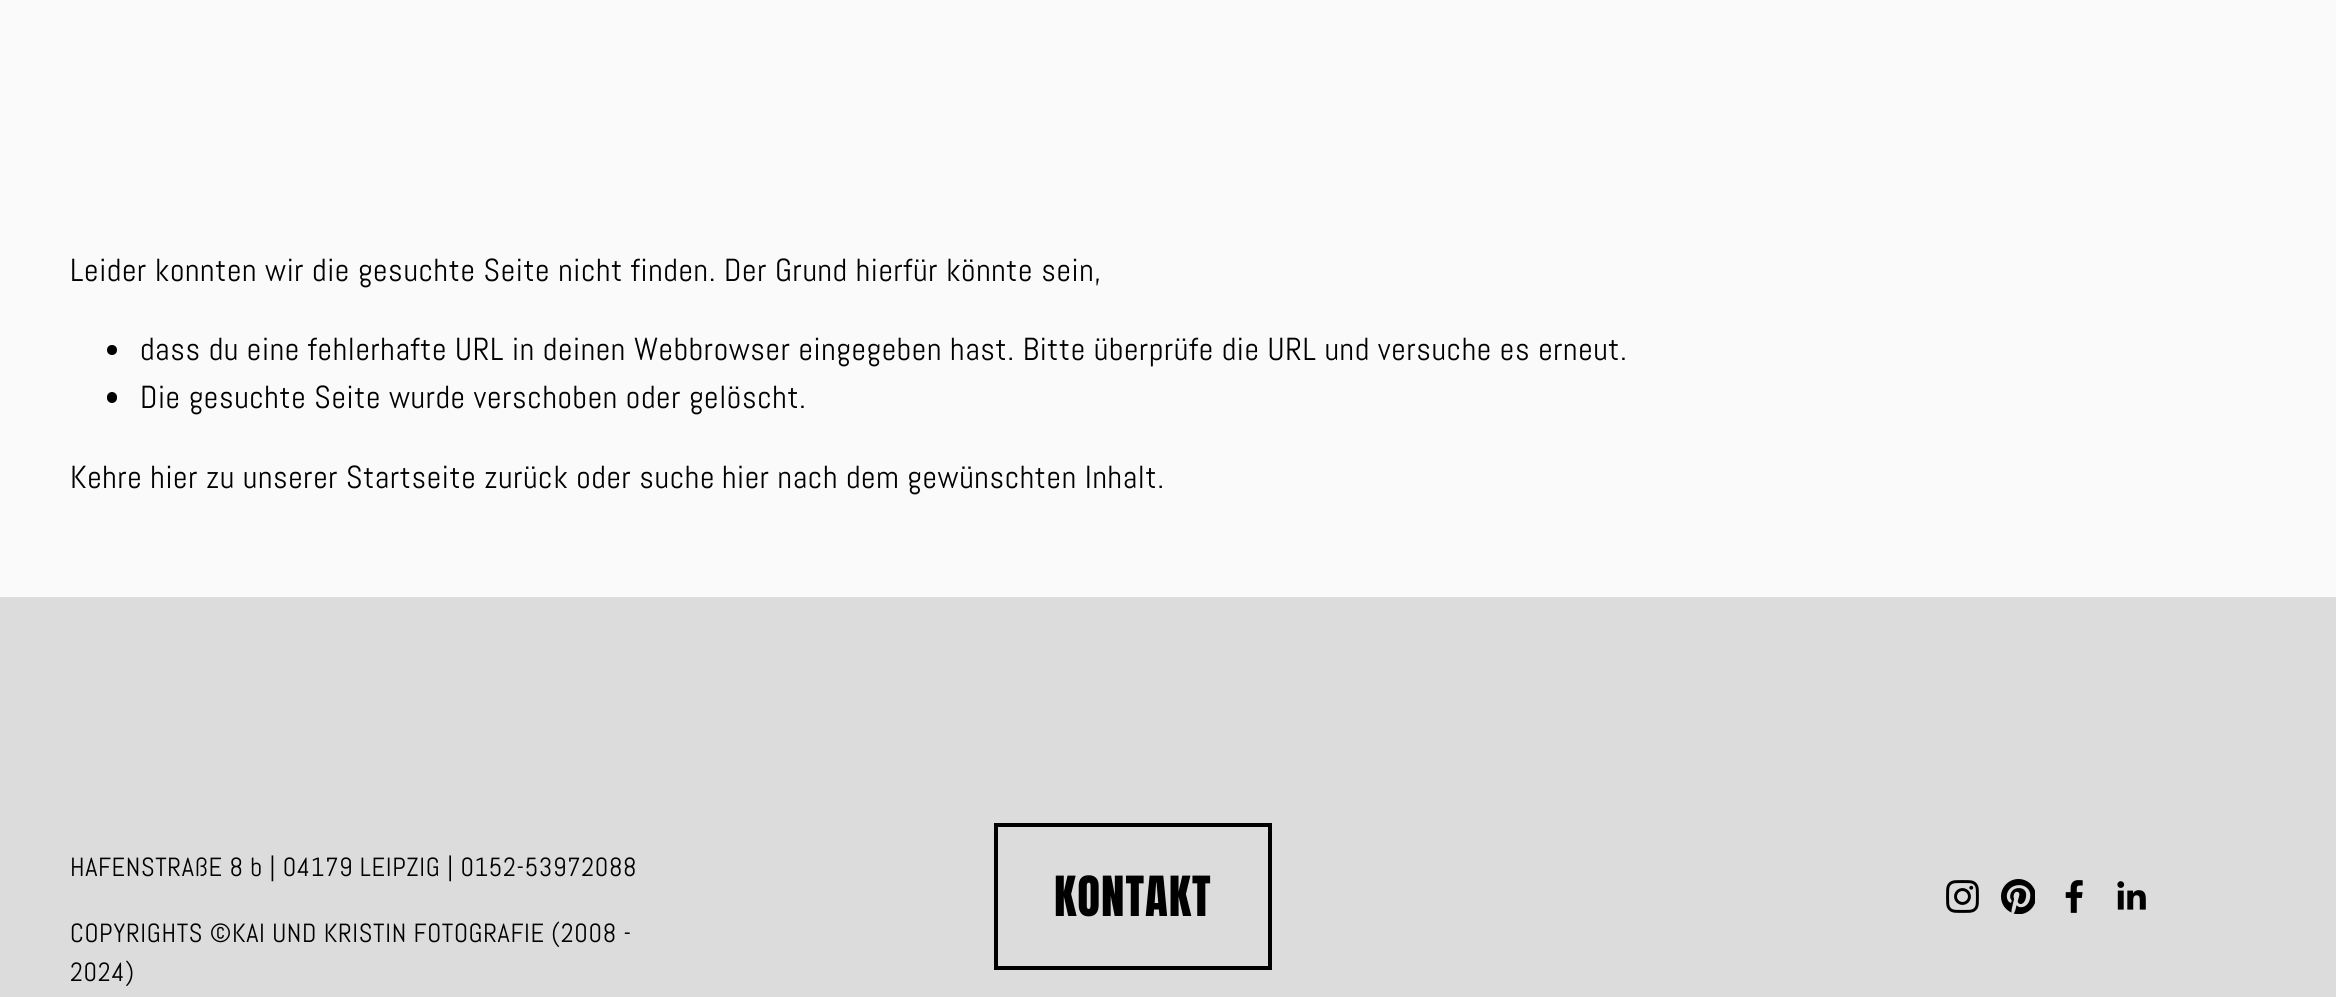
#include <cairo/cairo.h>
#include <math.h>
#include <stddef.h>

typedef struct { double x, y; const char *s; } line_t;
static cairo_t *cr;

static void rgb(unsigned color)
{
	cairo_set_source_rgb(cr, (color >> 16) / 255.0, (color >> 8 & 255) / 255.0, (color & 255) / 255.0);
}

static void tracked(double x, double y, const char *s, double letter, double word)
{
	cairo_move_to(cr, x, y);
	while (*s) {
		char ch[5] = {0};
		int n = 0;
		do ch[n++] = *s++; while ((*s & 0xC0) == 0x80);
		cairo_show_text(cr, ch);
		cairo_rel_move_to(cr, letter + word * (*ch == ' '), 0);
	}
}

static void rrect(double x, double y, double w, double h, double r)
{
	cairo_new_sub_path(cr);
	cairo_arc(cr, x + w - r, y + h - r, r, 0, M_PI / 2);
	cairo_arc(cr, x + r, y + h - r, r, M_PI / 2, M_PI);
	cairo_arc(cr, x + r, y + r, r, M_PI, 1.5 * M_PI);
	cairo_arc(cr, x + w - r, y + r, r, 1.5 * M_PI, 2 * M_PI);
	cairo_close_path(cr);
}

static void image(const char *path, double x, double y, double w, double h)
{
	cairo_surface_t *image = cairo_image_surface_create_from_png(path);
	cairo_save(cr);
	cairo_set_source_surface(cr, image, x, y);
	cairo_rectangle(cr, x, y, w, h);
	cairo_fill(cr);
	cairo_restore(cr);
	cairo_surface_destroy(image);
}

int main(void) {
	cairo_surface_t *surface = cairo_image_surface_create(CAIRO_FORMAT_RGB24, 2336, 997);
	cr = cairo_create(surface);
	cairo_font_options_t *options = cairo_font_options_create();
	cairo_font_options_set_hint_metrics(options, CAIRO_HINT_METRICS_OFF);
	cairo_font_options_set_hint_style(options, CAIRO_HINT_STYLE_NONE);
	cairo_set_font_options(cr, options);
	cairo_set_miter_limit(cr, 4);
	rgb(0xfafafa);
	cairo_paint(cr);
	rgb(0x000000);
	cairo_arc(cr, 112, 350, 5, 0, 2 * M_PI);
	cairo_fill(cr);
	rrect(107, 392, 10, 11, 5);
	cairo_fill(cr);
	rgb(0xdcdcdc);
	cairo_rectangle(cr, 0, 597, 2336, 400);
	cairo_fill(cr);
	cairo_rectangle(cr, 996, 825, 274, 143);
	rgb(0x000000);
	cairo_set_line_width(cr, 4);
	cairo_stroke(cr);
	image("img/1.png", 1946, 880, 33, 33);
	image("img/2.png", 2001, 879, 34, 35);
	image("img/3.png", 2065, 880, 18, 33);
	image("img/4.png", 2117, 881, 29, 29);
	cairo_select_font_face(cr, "Abel", CAIRO_FONT_SLANT_NORMAL, CAIRO_FONT_WEIGHT_NORMAL);
	cairo_set_font_size(cr, 31.85);
	{
		static const line_t items[] = {
			{70, 281, "Leider konnten wir die gesuchte Seite nicht finden. Der Grund hierfür könnte sein,"},
			{140, 360, "dass du eine fehlerhafte URL in deinen Webbrowser eingegeben hast. Bitte überprüfe die URL und versuche es erneut."},
			{140, 408, "Die gesuchte Seite wurde verschoben oder gelöscht."},
			{70, 488, "Kehre hier zu unserer Startseite zurück oder suche"},
			{722, 488, "hier nach dem gewünschten Inhalt."},
		};
		for (size_t i = 0; i < sizeof items / sizeof *items; i++) {
			tracked(items[i].x, items[i].y, items[i].s, 0.64, 0);
		}
	}
	cairo_set_font_size(cr, 26.25);
	{
		static const line_t items[] = {
			{70, 876, "HAFENSTRAßE 8 b | 04179 LEIPZIG | 0152-53972088"},
			{70, 942, "COPYRIGHTS ©KAI UND KRISTIN FOTOGRAFIE (2008 -"},
			{70, 981, "2024)"},
		};
		for (size_t i = 0; i < sizeof items / sizeof *items; i++) {
			tracked(items[i].x, items[i].y, items[i].s, 0.64, 0);
		}
	}
	cairo_select_font_face(cr, "Anton", CAIRO_FONT_SLANT_NORMAL, CAIRO_FONT_WEIGHT_NORMAL);
	cairo_set_font_size(cr, 47);
	tracked(1054, 916, "KONTAKT", 1, 0);
	cairo_surface_write_to_png(surface, "page.png");
	cairo_font_options_destroy(options);
	cairo_destroy(cr);
	cairo_surface_destroy(surface);
	return 0;
}
